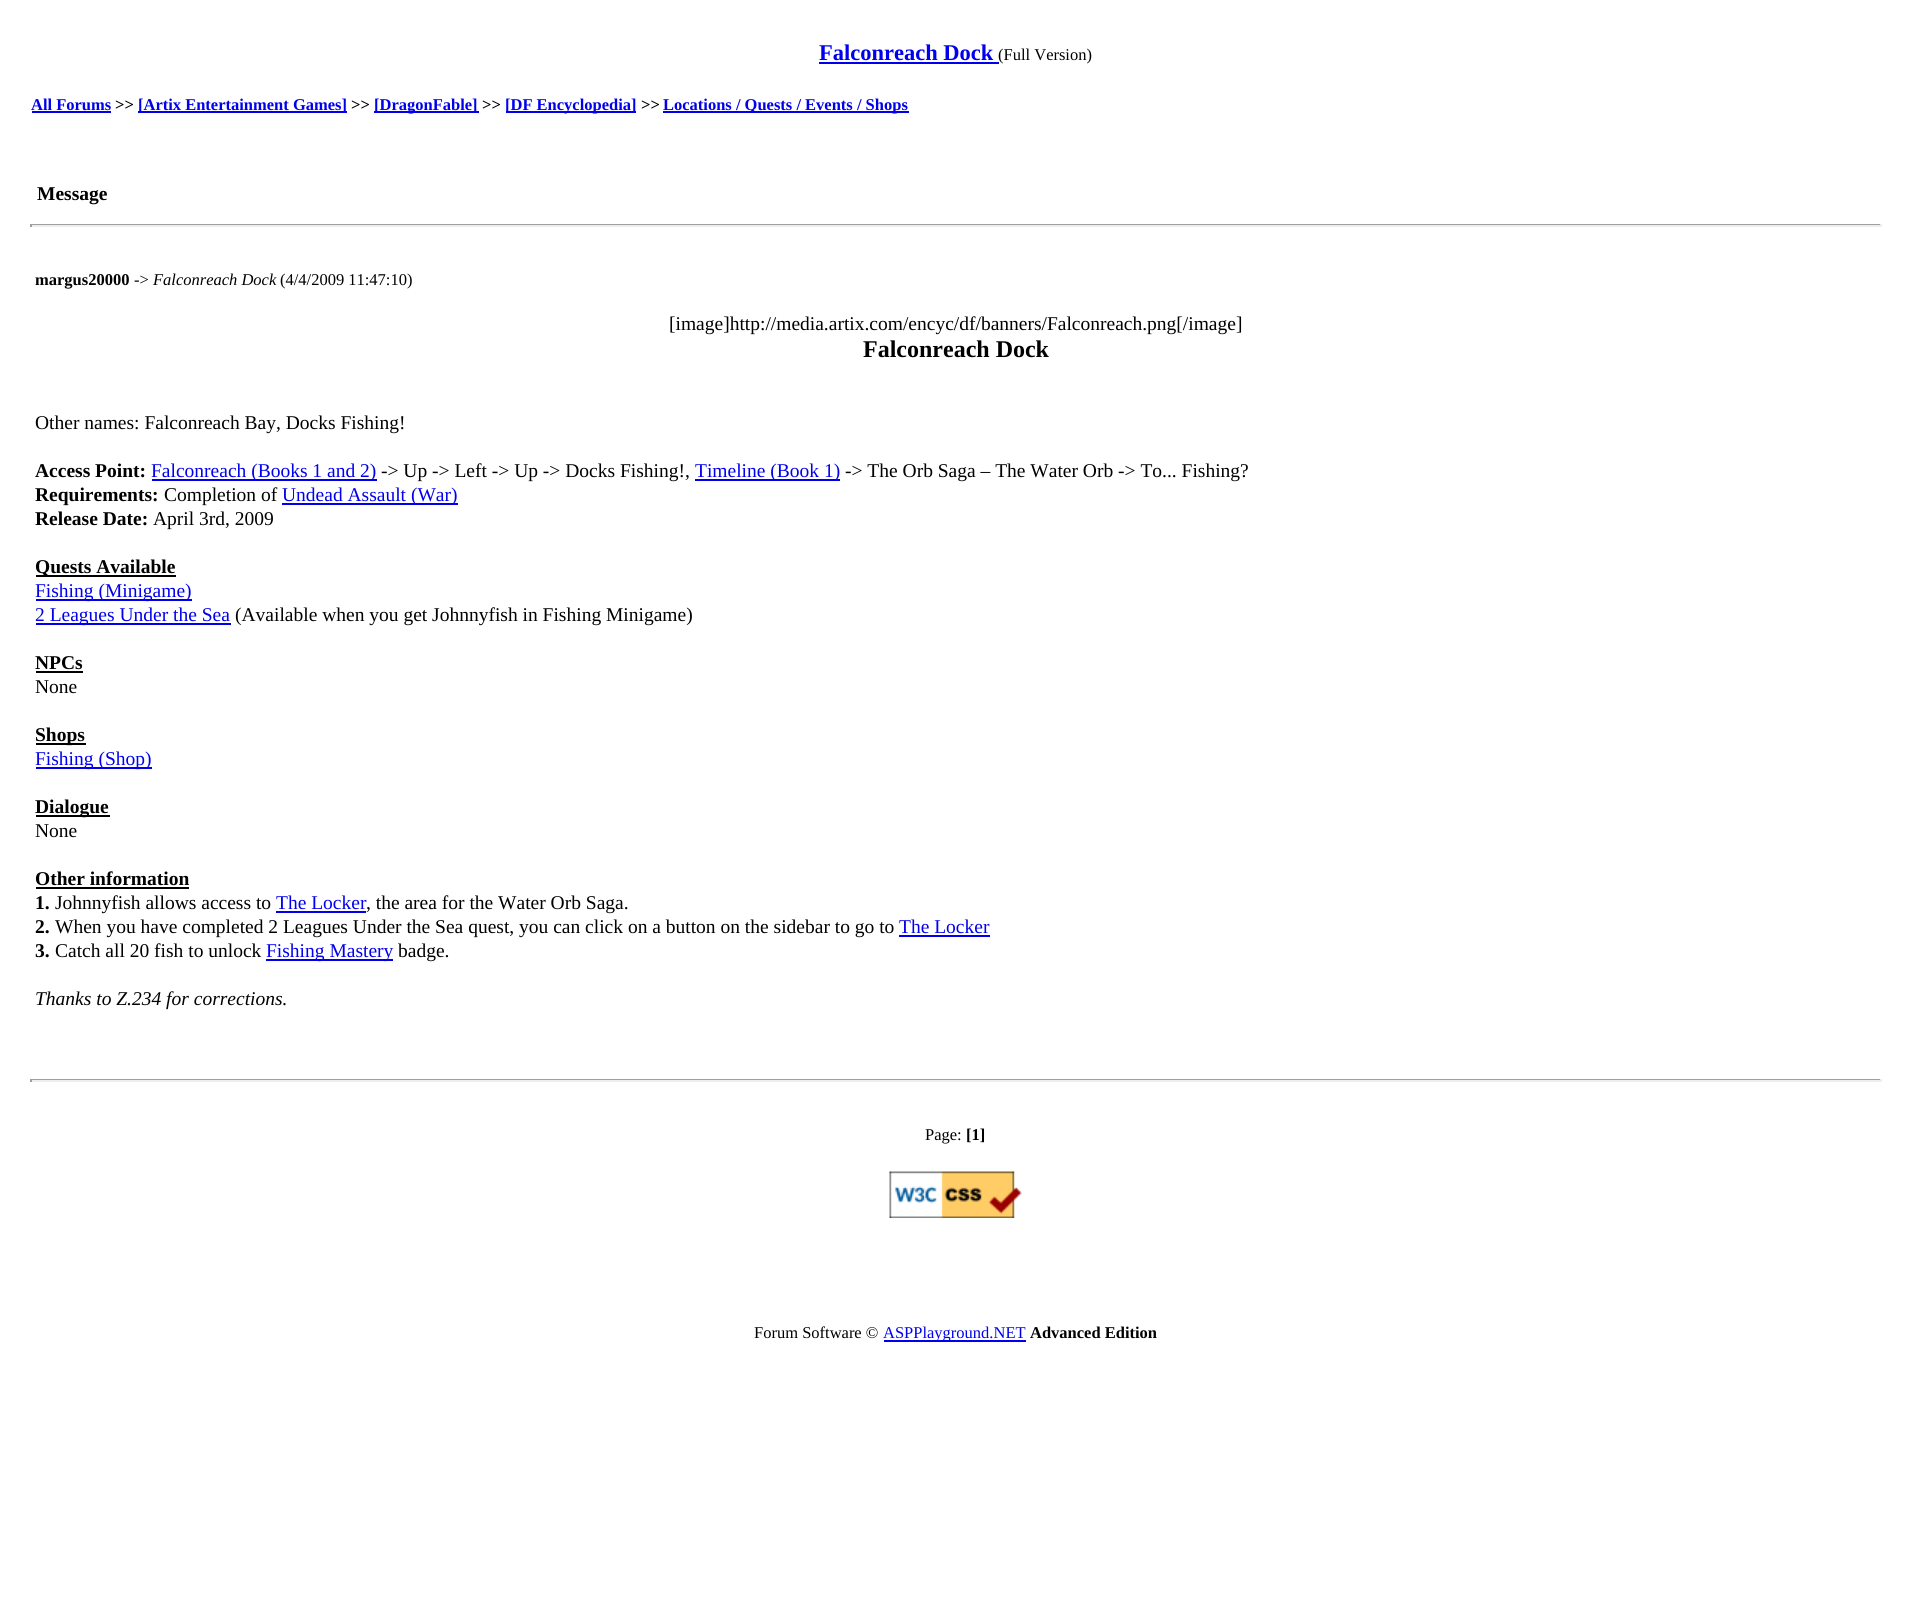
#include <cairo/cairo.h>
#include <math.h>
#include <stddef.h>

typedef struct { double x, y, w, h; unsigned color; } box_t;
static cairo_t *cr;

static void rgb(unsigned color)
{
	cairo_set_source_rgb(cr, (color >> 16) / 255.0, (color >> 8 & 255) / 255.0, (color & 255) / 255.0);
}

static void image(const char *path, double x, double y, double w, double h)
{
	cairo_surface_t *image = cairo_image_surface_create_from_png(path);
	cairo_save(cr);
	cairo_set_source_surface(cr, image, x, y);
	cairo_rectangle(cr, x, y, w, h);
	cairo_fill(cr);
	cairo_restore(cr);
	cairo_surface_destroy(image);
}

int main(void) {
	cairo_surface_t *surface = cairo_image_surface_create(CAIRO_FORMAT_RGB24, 1910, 1612);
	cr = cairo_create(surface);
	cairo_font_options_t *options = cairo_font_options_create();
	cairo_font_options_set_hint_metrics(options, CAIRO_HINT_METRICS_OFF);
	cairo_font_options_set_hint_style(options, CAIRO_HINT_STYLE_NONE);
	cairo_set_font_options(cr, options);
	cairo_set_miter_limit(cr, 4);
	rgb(0xffffff);
	cairo_paint(cr);
	{
		static const box_t items[] = {
			{819, 62, 180, 2, 0x0000ee},
			{32, 111, 79, 2, 0x0000ee},
			{138, 111, 209, 2, 0x0000ee},
			{374, 111, 105, 2, 0x0000ee},
			{506, 111, 130, 2, 0x0000ee},
			{663, 111, 246, 2, 0x0000ee},
			{30, 224, 1851, 1, 0x9f9f9f},
			{1880, 224, 2, 3, 0xeeeeee},
			{30, 225, 1851, 2, 0xeeeeee},
			{30, 224, 2, 3, 0x9f9f9f},
			{152, 479, 225, 2, 0x0000ee},
			{695, 479, 145, 2, 0x0000ee},
			{282, 503, 176, 2, 0x0000ee},
			{36, 575, 140, 2, 0x000000},
			{36, 599, 156, 2, 0x0000ee},
			{36, 623, 195, 2, 0x0000ee},
			{36, 671, 47, 2, 0x000000},
			{36, 743, 50, 2, 0x000000},
			{36, 767, 116, 2, 0x0000ee},
			{36, 815, 74, 2, 0x000000},
			{36, 887, 153, 2, 0x000000},
			{276, 911, 90, 2, 0x0000ee},
			{899, 935, 91, 2, 0x0000ee},
			{266, 959, 127, 2, 0x0000ee},
			{30, 1079, 1851, 1, 0x9f9f9f},
			{1880, 1079, 2, 3, 0xeeeeee},
			{30, 1080, 1851, 2, 0xeeeeee},
			{30, 1079, 2, 3, 0x9f9f9f},
		};
		for (size_t i = 0; i < sizeof items / sizeof *items; i++) {
			rgb(items[i].color);
			cairo_rectangle(cr, items[i].x, items[i].y, items[i].w, items[i].h);
			cairo_fill(cr);
		}
	}
	image("img/1.png", 889, 1171, 133, 47);
	rgb(0x0000ee);
	cairo_rectangle(cr, 884, 1340, 142, 2);
	cairo_fill(cr);
	cairo_select_font_face(cr, "Liberation Serif", CAIRO_FONT_SLANT_NORMAL, CAIRO_FONT_WEIGHT_BOLD);
	cairo_set_font_size(cr, 22.5);
	cairo_move_to(cr, 819, 60);
	cairo_show_text(cr, "Falconreach Dock");
	cairo_select_font_face(cr, "Liberation Serif", CAIRO_FONT_SLANT_NORMAL, CAIRO_FONT_WEIGHT_NORMAL);
	cairo_set_font_size(cr, 16.5);
	rgb(0x000000);
	cairo_move_to(cr, 998, 60);
	cairo_show_text(cr, "(Full Version)");
	cairo_select_font_face(cr, "Liberation Serif", CAIRO_FONT_SLANT_NORMAL, CAIRO_FONT_WEIGHT_BOLD);
	rgb(0x0000ee);
	cairo_move_to(cr, 31, 110);
	cairo_show_text(cr, "All Forums");
	rgb(0x000000);
	cairo_move_to(cr, 115, 110);
	cairo_show_text(cr, ">>");
	rgb(0x0000ee);
	cairo_move_to(cr, 138, 110);
	cairo_show_text(cr, "[Artix Entertainment Games]");
	rgb(0x000000);
	cairo_move_to(cr, 351, 110);
	cairo_show_text(cr, ">>");
	rgb(0x0000ee);
	cairo_move_to(cr, 374, 110);
	cairo_show_text(cr, "[DragonFable]");
	rgb(0x000000);
	cairo_move_to(cr, 482, 110);
	cairo_show_text(cr, ">>");
	rgb(0x0000ee);
	cairo_move_to(cr, 505, 110);
	cairo_show_text(cr, "[DF Encyclopedia]");
	rgb(0x000000);
	cairo_move_to(cr, 641, 110);
	cairo_show_text(cr, ">>");
	rgb(0x0000ee);
	cairo_move_to(cr, 663, 110);
	cairo_show_text(cr, "Locations / Quests / Events / Shops");
	cairo_set_font_size(cr, 19.5);
	rgb(0x000000);
	cairo_move_to(cr, 37, 200);
	cairo_show_text(cr, "Message");
	cairo_set_font_size(cr, 16.5);
	cairo_move_to(cr, 35, 285);
	cairo_show_text(cr, "margus20000");
	cairo_select_font_face(cr, "Liberation Serif", CAIRO_FONT_SLANT_NORMAL, CAIRO_FONT_WEIGHT_NORMAL);
	cairo_move_to(cr, 134, 285);
	cairo_show_text(cr, "->");
	cairo_select_font_face(cr, "Liberation Serif", CAIRO_FONT_SLANT_ITALIC, CAIRO_FONT_WEIGHT_NORMAL);
	cairo_move_to(cr, 153, 285);
	cairo_show_text(cr, "Falconreach Dock");
	cairo_select_font_face(cr, "Liberation Serif", CAIRO_FONT_SLANT_NORMAL, CAIRO_FONT_WEIGHT_NORMAL);
	cairo_move_to(cr, 280, 285);
	cairo_show_text(cr, "(4/4/2009 11:47:10)");
	cairo_set_font_size(cr, 19.5);
	cairo_move_to(cr, 669, 330);
	cairo_show_text(cr, "[image]http://media.artix.com/encyc/df/banners/Falconreach.png[/image]");
	cairo_select_font_face(cr, "Liberation Serif", CAIRO_FONT_SLANT_NORMAL, CAIRO_FONT_WEIGHT_BOLD);
	cairo_set_font_size(cr, 24);
	cairo_move_to(cr, 863, 357);
	cairo_show_text(cr, "Falconreach Dock");
	cairo_select_font_face(cr, "Liberation Serif", CAIRO_FONT_SLANT_NORMAL, CAIRO_FONT_WEIGHT_NORMAL);
	cairo_set_font_size(cr, 19.5);
	cairo_move_to(cr, 35, 429);
	cairo_show_text(cr, "Other names: Falconreach Bay, Docks Fishing!");
	cairo_select_font_face(cr, "Liberation Serif", CAIRO_FONT_SLANT_NORMAL, CAIRO_FONT_WEIGHT_BOLD);
	cairo_move_to(cr, 35, 477);
	cairo_show_text(cr, "Access Point:");
	cairo_select_font_face(cr, "Liberation Serif", CAIRO_FONT_SLANT_NORMAL, CAIRO_FONT_WEIGHT_NORMAL);
	rgb(0x0000ee);
	cairo_move_to(cr, 151, 477);
	cairo_show_text(cr, "Falconreach (Books 1 and 2)");
	rgb(0x000000);
	cairo_move_to(cr, 381, 477);
	cairo_show_text(cr, "-> Up -> Left -> Up -> Docks Fishing!,");
	rgb(0x0000ee);
	cairo_move_to(cr, 695, 477);
	cairo_show_text(cr, "Timeline (Book 1)");
	rgb(0x000000);
	cairo_move_to(cr, 845, 477);
	cairo_show_text(cr, "-> The Orb Saga – The Water Orb -> To... Fishing?");
	cairo_select_font_face(cr, "Liberation Serif", CAIRO_FONT_SLANT_NORMAL, CAIRO_FONT_WEIGHT_BOLD);
	cairo_move_to(cr, 35, 501);
	cairo_show_text(cr, "Requirements:");
	cairo_select_font_face(cr, "Liberation Serif", CAIRO_FONT_SLANT_NORMAL, CAIRO_FONT_WEIGHT_NORMAL);
	cairo_move_to(cr, 164, 501);
	cairo_show_text(cr, "Completion of");
	rgb(0x0000ee);
	cairo_move_to(cr, 282, 501);
	cairo_show_text(cr, "Undead Assault (War)");
	cairo_select_font_face(cr, "Liberation Serif", CAIRO_FONT_SLANT_NORMAL, CAIRO_FONT_WEIGHT_BOLD);
	rgb(0x000000);
	cairo_move_to(cr, 35, 525);
	cairo_show_text(cr, "Release Date:");
	cairo_select_font_face(cr, "Liberation Serif", CAIRO_FONT_SLANT_NORMAL, CAIRO_FONT_WEIGHT_NORMAL);
	cairo_move_to(cr, 153, 525);
	cairo_show_text(cr, "April 3rd, 2009");
	cairo_select_font_face(cr, "Liberation Serif", CAIRO_FONT_SLANT_NORMAL, CAIRO_FONT_WEIGHT_BOLD);
	cairo_move_to(cr, 35, 573);
	cairo_show_text(cr, "Quests Available");
	cairo_select_font_face(cr, "Liberation Serif", CAIRO_FONT_SLANT_NORMAL, CAIRO_FONT_WEIGHT_NORMAL);
	rgb(0x0000ee);
	cairo_move_to(cr, 35, 597);
	cairo_show_text(cr, "Fishing (Minigame)");
	cairo_move_to(cr, 35, 621);
	cairo_show_text(cr, "2 Leagues Under the Sea");
	rgb(0x000000);
	cairo_move_to(cr, 235, 621);
	cairo_show_text(cr, "(Available when you get Johnnyfish in Fishing Minigame)");
	cairo_select_font_face(cr, "Liberation Serif", CAIRO_FONT_SLANT_NORMAL, CAIRO_FONT_WEIGHT_BOLD);
	cairo_move_to(cr, 35, 669);
	cairo_show_text(cr, "NPCs");
	cairo_select_font_face(cr, "Liberation Serif", CAIRO_FONT_SLANT_NORMAL, CAIRO_FONT_WEIGHT_NORMAL);
	cairo_move_to(cr, 35, 693);
	cairo_show_text(cr, "None");
	cairo_select_font_face(cr, "Liberation Serif", CAIRO_FONT_SLANT_NORMAL, CAIRO_FONT_WEIGHT_BOLD);
	cairo_move_to(cr, 35, 741);
	cairo_show_text(cr, "Shops");
	cairo_select_font_face(cr, "Liberation Serif", CAIRO_FONT_SLANT_NORMAL, CAIRO_FONT_WEIGHT_NORMAL);
	rgb(0x0000ee);
	cairo_move_to(cr, 35, 765);
	cairo_show_text(cr, "Fishing (Shop)");
	cairo_select_font_face(cr, "Liberation Serif", CAIRO_FONT_SLANT_NORMAL, CAIRO_FONT_WEIGHT_BOLD);
	rgb(0x000000);
	cairo_move_to(cr, 35, 813);
	cairo_show_text(cr, "Dialogue");
	cairo_select_font_face(cr, "Liberation Serif", CAIRO_FONT_SLANT_NORMAL, CAIRO_FONT_WEIGHT_NORMAL);
	cairo_move_to(cr, 35, 837);
	cairo_show_text(cr, "None");
	cairo_select_font_face(cr, "Liberation Serif", CAIRO_FONT_SLANT_NORMAL, CAIRO_FONT_WEIGHT_BOLD);
	cairo_move_to(cr, 35, 885);
	cairo_show_text(cr, "Other information");
	cairo_move_to(cr, 35, 909);
	cairo_show_text(cr, "1.");
	cairo_select_font_face(cr, "Liberation Serif", CAIRO_FONT_SLANT_NORMAL, CAIRO_FONT_WEIGHT_NORMAL);
	cairo_move_to(cr, 55, 909);
	cairo_show_text(cr, "Johnnyfish allows access to");
	rgb(0x0000ee);
	cairo_move_to(cr, 276, 909);
	cairo_show_text(cr, "The Locker");
	rgb(0x000000);
	cairo_move_to(cr, 366, 909);
	cairo_show_text(cr, ", the area for the Water Orb Saga.");
	cairo_select_font_face(cr, "Liberation Serif", CAIRO_FONT_SLANT_NORMAL, CAIRO_FONT_WEIGHT_BOLD);
	cairo_move_to(cr, 35, 933);
	cairo_show_text(cr, "2.");
	cairo_select_font_face(cr, "Liberation Serif", CAIRO_FONT_SLANT_NORMAL, CAIRO_FONT_WEIGHT_NORMAL);
	cairo_move_to(cr, 55, 933);
	cairo_show_text(cr, "When you have completed 2 Leagues Under the Sea quest, you can click on a button on the sidebar to go to");
	rgb(0x0000ee);
	cairo_move_to(cr, 899, 933);
	cairo_show_text(cr, "The Locker");
	cairo_select_font_face(cr, "Liberation Serif", CAIRO_FONT_SLANT_NORMAL, CAIRO_FONT_WEIGHT_BOLD);
	rgb(0x000000);
	cairo_move_to(cr, 35, 957);
	cairo_show_text(cr, "3.");
	cairo_select_font_face(cr, "Liberation Serif", CAIRO_FONT_SLANT_NORMAL, CAIRO_FONT_WEIGHT_NORMAL);
	cairo_move_to(cr, 55, 957);
	cairo_show_text(cr, "Catch all 20 fish to unlock");
	rgb(0x0000ee);
	cairo_move_to(cr, 266, 957);
	cairo_show_text(cr, "Fishing Mastery");
	rgb(0x000000);
	cairo_move_to(cr, 398, 957);
	cairo_show_text(cr, "badge.");
	cairo_select_font_face(cr, "Liberation Serif", CAIRO_FONT_SLANT_ITALIC, CAIRO_FONT_WEIGHT_NORMAL);
	cairo_move_to(cr, 35, 1005);
	cairo_show_text(cr, "Thanks to Z.234 for corrections.");
	cairo_select_font_face(cr, "Liberation Serif", CAIRO_FONT_SLANT_NORMAL, CAIRO_FONT_WEIGHT_NORMAL);
	cairo_set_font_size(cr, 16.5);
	cairo_move_to(cr, 925, 1140);
	cairo_show_text(cr, "Page:");
	cairo_select_font_face(cr, "Liberation Serif", CAIRO_FONT_SLANT_NORMAL, CAIRO_FONT_WEIGHT_BOLD);
	cairo_move_to(cr, 966, 1140);
	cairo_show_text(cr, "[1]");
	cairo_select_font_face(cr, "Liberation Serif", CAIRO_FONT_SLANT_NORMAL, CAIRO_FONT_WEIGHT_NORMAL);
	cairo_move_to(cr, 754, 1338);
	cairo_show_text(cr, "Forum Software ©");
	rgb(0x0000ee);
	cairo_move_to(cr, 883, 1338);
	cairo_show_text(cr, "ASPPlayground.NET");
	cairo_select_font_face(cr, "Liberation Serif", CAIRO_FONT_SLANT_NORMAL, CAIRO_FONT_WEIGHT_BOLD);
	rgb(0x000000);
	cairo_move_to(cr, 1030, 1338);
	cairo_show_text(cr, "Advanced Edition");
	cairo_surface_write_to_png(surface, "page.png");
	cairo_font_options_destroy(options);
	cairo_destroy(cr);
	cairo_surface_destroy(surface);
	return 0;
}
